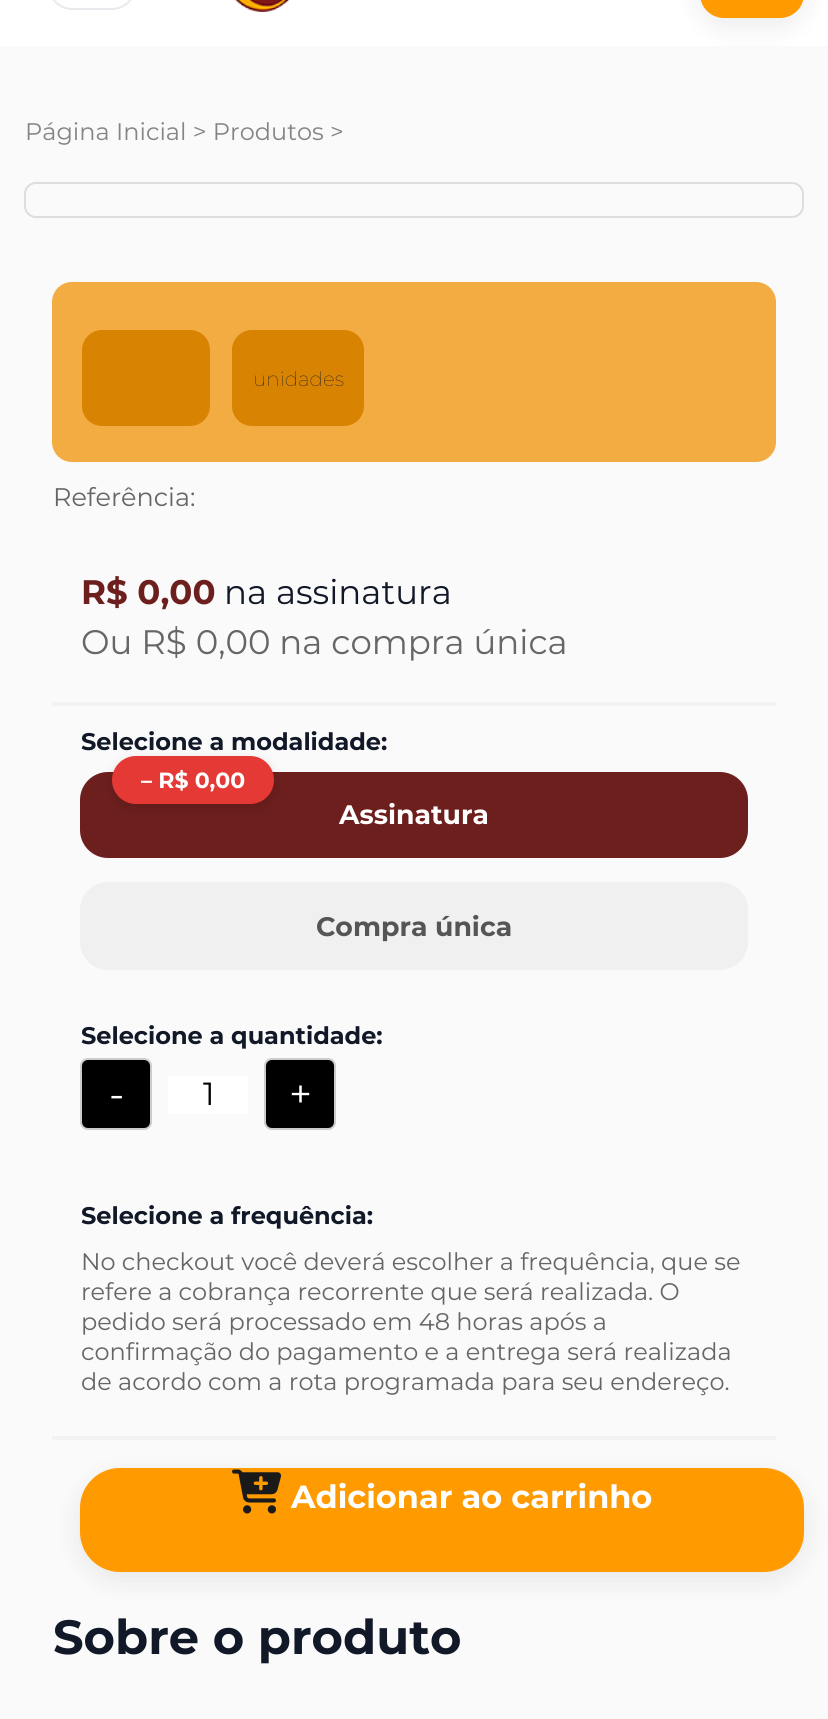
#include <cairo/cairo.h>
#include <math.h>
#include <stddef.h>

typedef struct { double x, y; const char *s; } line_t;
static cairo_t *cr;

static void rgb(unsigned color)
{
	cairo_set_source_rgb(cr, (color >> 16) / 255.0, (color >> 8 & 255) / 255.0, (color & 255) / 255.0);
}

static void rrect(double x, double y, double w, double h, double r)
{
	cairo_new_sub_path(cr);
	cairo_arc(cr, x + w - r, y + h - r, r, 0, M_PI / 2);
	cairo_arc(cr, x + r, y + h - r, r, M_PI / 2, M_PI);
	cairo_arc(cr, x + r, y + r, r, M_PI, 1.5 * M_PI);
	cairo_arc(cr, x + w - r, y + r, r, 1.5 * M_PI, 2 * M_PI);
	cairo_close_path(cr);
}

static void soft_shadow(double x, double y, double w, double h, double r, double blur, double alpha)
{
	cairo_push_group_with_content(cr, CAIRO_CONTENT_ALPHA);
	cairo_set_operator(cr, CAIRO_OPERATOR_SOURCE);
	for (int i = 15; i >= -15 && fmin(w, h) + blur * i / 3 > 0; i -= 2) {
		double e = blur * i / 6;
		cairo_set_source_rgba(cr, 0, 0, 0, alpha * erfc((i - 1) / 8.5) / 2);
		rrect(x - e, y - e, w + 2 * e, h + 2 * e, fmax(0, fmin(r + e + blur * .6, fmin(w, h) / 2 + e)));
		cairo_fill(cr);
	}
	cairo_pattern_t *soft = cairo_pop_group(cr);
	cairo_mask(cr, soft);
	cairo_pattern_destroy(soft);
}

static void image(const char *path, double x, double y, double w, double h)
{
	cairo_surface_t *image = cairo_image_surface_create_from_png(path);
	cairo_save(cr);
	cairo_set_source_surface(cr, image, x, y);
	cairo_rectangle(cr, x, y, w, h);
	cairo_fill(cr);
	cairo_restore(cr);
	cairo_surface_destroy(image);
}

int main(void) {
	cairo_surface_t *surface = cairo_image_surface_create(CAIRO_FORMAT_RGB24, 828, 1719);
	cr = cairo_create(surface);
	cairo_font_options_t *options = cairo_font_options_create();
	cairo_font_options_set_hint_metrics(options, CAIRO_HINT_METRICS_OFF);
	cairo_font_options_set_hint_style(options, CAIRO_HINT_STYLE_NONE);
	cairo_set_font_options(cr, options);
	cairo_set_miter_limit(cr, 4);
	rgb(0xfafafa);
	cairo_paint(cr);
	rgb(0xffffff);
	cairo_rectangle(cr, 0, 0, 828, 46);
	cairo_fill(cr);
	rrect(49, -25, 86, 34, 23);
	rgb(0xe9e9ee);
	cairo_stroke(cr);
	image("img/1.png", 235, 0, 55, 12);
	rgb(0x000000);
	soft_shadow(700, -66, 104, 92, 24, 14, 0.08);
	rgb(0xff9a00);
	rrect(701, -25, 102, 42, 23);
	cairo_fill_preserve(cr);
	cairo_stroke(cr);
	rrect(25, 183, 778, 34, 11);
	rgb(0xdddddd);
	cairo_stroke(cr);
	rgb(0xf3ac42);
	rrect(52, 282, 724, 180, 20);
	cairo_fill(cr);
	rgb(0xd98302);
	rrect(82, 330, 128, 96, 20);
	cairo_fill(cr);
	rrect(232, 330, 132, 96, 20);
	cairo_fill(cr);
	rgb(0xf3f2f2);
	cairo_rectangle(cr, 52, 702, 724, 4);
	cairo_fill(cr);
	rgb(0x6d1f1d);
	rrect(80, 772, 668, 86, 28);
	cairo_fill(cr);
	rgb(0x000000);
	soft_shadow(112, 760, 162, 48, 24, 6, 0.12);
	rgb(0xe53935);
	rrect(112, 756, 162, 48, 24);
	cairo_fill(cr);
	rgb(0xf0f0f0);
	rrect(80, 882, 668, 88, 28);
	cairo_fill(cr);
	rgb(0x000000);
	rrect(81, 1059, 70, 70, 7);
	cairo_fill_preserve(cr);
	rgb(0xcccccc);
	cairo_stroke(cr);
	rgb(0xffffff);
	cairo_rectangle(cr, 168, 1076, 80, 38);
	cairo_fill(cr);
	rgb(0x000000);
	rrect(265, 1059, 70, 70, 7);
	cairo_fill_preserve(cr);
	rgb(0xcccccc);
	cairo_stroke(cr);
	rgb(0xf3f2f2);
	cairo_rectangle(cr, 52, 1436, 724, 4);
	cairo_fill(cr);
	rgb(0x000000);
	soft_shadow(80, 1476, 724, 104, 40, 14, 0.08);
	rgb(0xff9a00);
	rrect(81, 1469, 722, 102, 39);
	cairo_fill_preserve(cr);
	cairo_stroke(cr);
	image("img/2.png", 232, 1469, 50, 45);
	cairo_select_font_face(cr, "Montserrat", CAIRO_FONT_SLANT_NORMAL, CAIRO_FONT_WEIGHT_NORMAL);
	cairo_set_font_size(cr, 24);
	rgb(0x858484);
	cairo_move_to(cr, 25, 140);
	cairo_show_text(cr, "Página Inicial > Produtos >");
	cairo_select_font_face(cr, "Montserrat Thin", CAIRO_FONT_SLANT_NORMAL, CAIRO_FONT_WEIGHT_NORMAL);
	cairo_set_font_size(cr, 20);
	rgb(0x111827);
	cairo_move_to(cr, 253, 386);
	cairo_show_text(cr, "unidades");
	cairo_select_font_face(cr, "Montserrat", CAIRO_FONT_SLANT_NORMAL, CAIRO_FONT_WEIGHT_NORMAL);
	cairo_set_font_size(cr, 25.5);
	rgb(0x666666);
	cairo_move_to(cr, 53, 506);
	cairo_show_text(cr, "Referência:");
	cairo_select_font_face(cr, "Montserrat", CAIRO_FONT_SLANT_NORMAL, CAIRO_FONT_WEIGHT_BOLD);
	cairo_set_font_size(cr, 34);
	rgb(0x6d1f1d);
	cairo_move_to(cr, 81, 604);
	cairo_show_text(cr, "R$ 0,00");
	cairo_select_font_face(cr, "Montserrat", CAIRO_FONT_SLANT_NORMAL, CAIRO_FONT_WEIGHT_NORMAL);
	rgb(0x111827);
	cairo_move_to(cr, 224, 604);
	cairo_show_text(cr, "na assinatura");
	rgb(0x666666);
	cairo_move_to(cr, 81, 654);
	cairo_show_text(cr, "Ou R$ 0,00 na compra única");
	cairo_select_font_face(cr, "Montserrat", CAIRO_FONT_SLANT_NORMAL, CAIRO_FONT_WEIGHT_BOLD);
	cairo_set_font_size(cr, 24);
	rgb(0x111827);
	cairo_move_to(cr, 81, 750);
	cairo_show_text(cr, "Selecione a modalidade:");
	cairo_set_font_size(cr, 22);
	rgb(0xffffff);
	cairo_move_to(cr, 141, 788);
	cairo_show_text(cr, "– R$ 0,00");
	cairo_set_font_size(cr, 26.75);
	cairo_move_to(cr, 339, 824);
	cairo_show_text(cr, "Assinatura");
	rgb(0x555555);
	cairo_move_to(cr, 316, 936);
	cairo_show_text(cr, "Compra única");
	cairo_set_font_size(cr, 24);
	rgb(0x111827);
	cairo_move_to(cr, 81, 1044);
	cairo_show_text(cr, "Selecione a quantidade:");
	cairo_select_font_face(cr, "Montserrat", CAIRO_FONT_SLANT_NORMAL, CAIRO_FONT_WEIGHT_NORMAL);
	cairo_set_font_size(cr, 40);
	rgb(0xffffff);
	cairo_move_to(cr, 109, 1108);
	cairo_show_text(cr, "-");
	cairo_set_font_size(cr, 32);
	rgb(0x000000);
	cairo_move_to(cr, 203, 1105);
	cairo_show_text(cr, "1");
	cairo_set_font_size(cr, 40);
	rgb(0xffffff);
	cairo_move_to(cr, 289, 1108);
	cairo_show_text(cr, "+");
	cairo_select_font_face(cr, "Montserrat", CAIRO_FONT_SLANT_NORMAL, CAIRO_FONT_WEIGHT_BOLD);
	cairo_set_font_size(cr, 24);
	rgb(0x111827);
	cairo_move_to(cr, 81, 1224);
	cairo_show_text(cr, "Selecione a frequência:");
	cairo_select_font_face(cr, "Montserrat", CAIRO_FONT_SLANT_NORMAL, CAIRO_FONT_WEIGHT_NORMAL);
	rgb(0x666666);
	{
		static const line_t items[] = {
			{81, 1270, "No checkout você deverá escolher a frequência, que se"},
			{81, 1300, "refere a cobrança recorrente que será realizada. O"},
			{81, 1330, "pedido será processado em 48 horas após a"},
			{81, 1360, "confirmação do pagamento e a entrega será realizada"},
			{81, 1390, "de acordo com a rota programada para seu endereço."},
		};
		for (size_t i = 0; i < sizeof items / sizeof *items; i++) {
			cairo_move_to(cr, items[i].x, items[i].y);
			cairo_show_text(cr, items[i].s);
		}
	}
	cairo_select_font_face(cr, "Montserrat", CAIRO_FONT_SLANT_NORMAL, CAIRO_FONT_WEIGHT_BOLD);
	cairo_set_font_size(cr, 32);
	rgb(0xffffff);
	cairo_move_to(cr, 291, 1508);
	cairo_show_text(cr, "Adicionar ao carrinho");
	cairo_set_font_size(cr, 48);
	rgb(0x111827);
	cairo_move_to(cr, 53, 1654);
	cairo_show_text(cr, "Sobre o produto");
	cairo_surface_write_to_png(surface, "page.png");
	cairo_font_options_destroy(options);
	cairo_destroy(cr);
	cairo_surface_destroy(surface);
	return 0;
}
